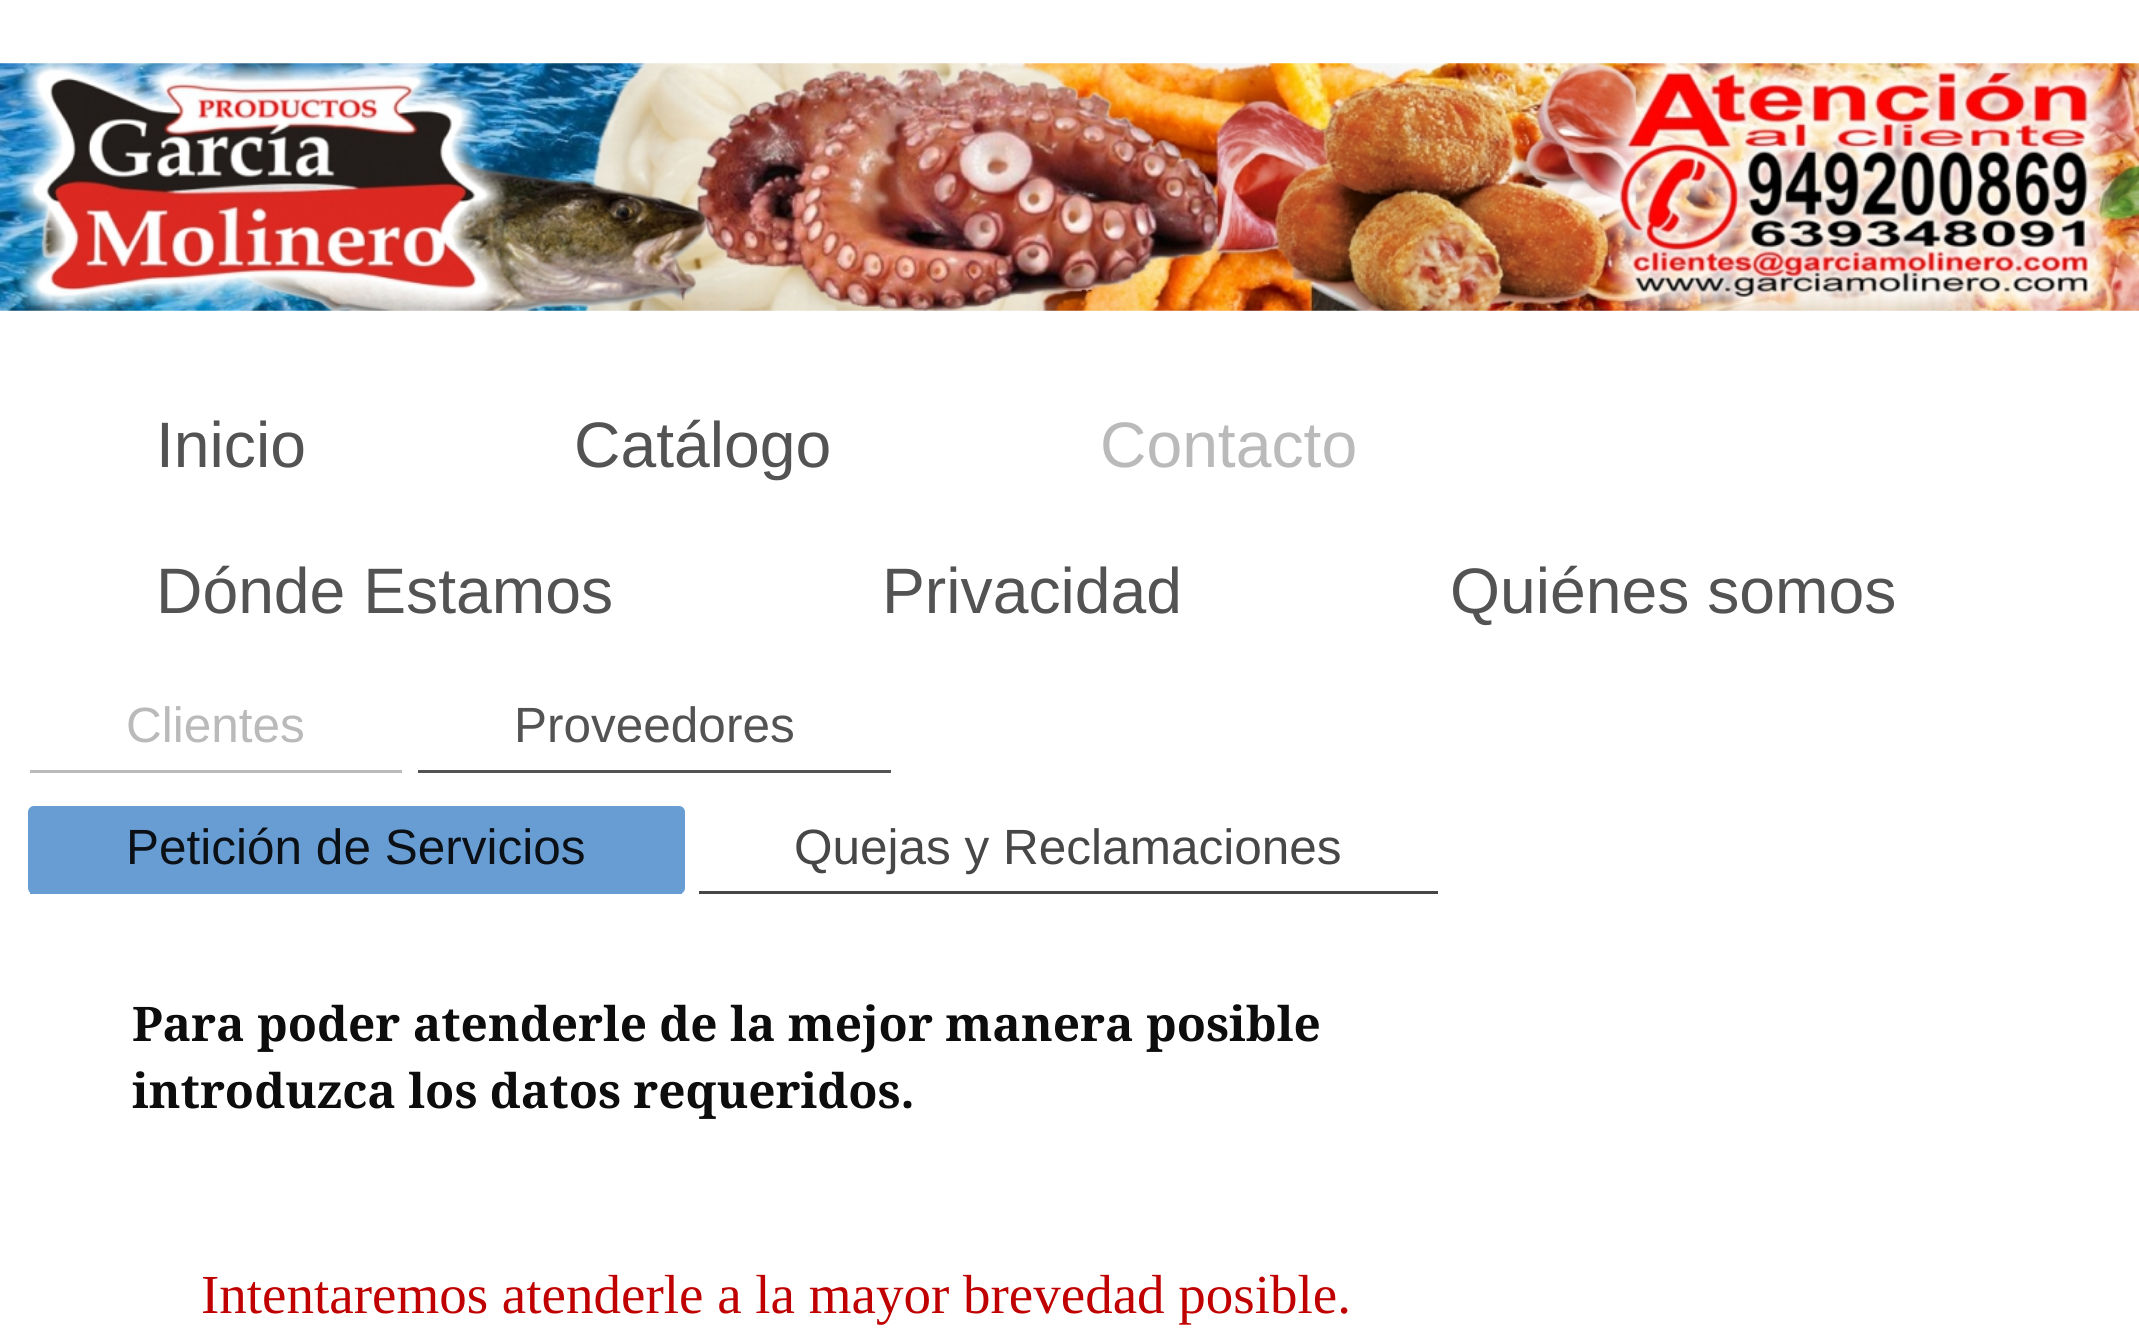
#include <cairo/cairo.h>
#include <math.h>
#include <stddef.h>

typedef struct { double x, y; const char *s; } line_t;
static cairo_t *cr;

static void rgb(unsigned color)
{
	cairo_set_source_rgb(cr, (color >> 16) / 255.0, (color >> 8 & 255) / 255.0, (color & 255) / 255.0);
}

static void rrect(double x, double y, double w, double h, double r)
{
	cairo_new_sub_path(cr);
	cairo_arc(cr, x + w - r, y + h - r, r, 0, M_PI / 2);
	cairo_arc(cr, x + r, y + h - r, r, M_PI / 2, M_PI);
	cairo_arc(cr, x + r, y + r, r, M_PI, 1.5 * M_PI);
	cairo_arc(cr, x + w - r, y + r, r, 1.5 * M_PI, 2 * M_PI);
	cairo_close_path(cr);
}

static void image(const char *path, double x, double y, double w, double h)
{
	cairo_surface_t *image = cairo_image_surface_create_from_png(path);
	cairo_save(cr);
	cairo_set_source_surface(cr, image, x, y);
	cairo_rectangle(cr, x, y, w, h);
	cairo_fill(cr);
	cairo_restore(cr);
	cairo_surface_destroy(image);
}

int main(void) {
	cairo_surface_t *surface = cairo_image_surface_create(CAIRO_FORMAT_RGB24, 2139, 1339);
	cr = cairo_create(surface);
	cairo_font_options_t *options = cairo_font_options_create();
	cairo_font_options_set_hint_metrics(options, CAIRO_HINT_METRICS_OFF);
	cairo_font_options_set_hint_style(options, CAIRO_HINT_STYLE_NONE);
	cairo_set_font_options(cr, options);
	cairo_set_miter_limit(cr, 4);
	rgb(0xffffff);
	cairo_paint(cr);
	image("img/1.png", 0, 63, 2139, 248);
	rgb(0xbababa);
	cairo_rectangle(cr, 30, 770, 372, 3);
	cairo_fill(cr);
	rgb(0x535353);
	cairo_rectangle(cr, 418, 770, 473, 3);
	cairo_fill(cr);
	rgb(0x689dd4);
	rrect(28, 806, 657, 88, 6);
	cairo_fill(cr);
	cairo_rectangle(cr, 30, 892, 652, 2);
	cairo_fill(cr);
	rgb(0x474747);
	cairo_rectangle(cr, 699, 891, 739, 3);
	cairo_fill(cr);
	cairo_select_font_face(cr, "Liberation Sans", CAIRO_FONT_SLANT_NORMAL, CAIRO_FONT_WEIGHT_NORMAL);
	cairo_set_font_size(cr, 64.25);
	rgb(0x535353);
	cairo_move_to(cr, 156, 467);
	cairo_show_text(cr, "Inicio");
	cairo_move_to(cr, 574, 467);
	cairo_show_text(cr, "Catálogo");
	rgb(0xbababa);
	cairo_move_to(cr, 1100, 467);
	cairo_show_text(cr, "Contacto");
	rgb(0x535353);
	{
		static const line_t items[] = {
			{156, 613, "Dónde Estamos"},
			{882, 613, "Privacidad"},
			{1450, 613, "Quiénes somos"},
		};
		for (size_t i = 0; i < sizeof items / sizeof *items; i++) {
			cairo_move_to(cr, items[i].x, items[i].y);
			cairo_show_text(cr, items[i].s);
		}
	}
	cairo_set_font_size(cr, 49.5);
	rgb(0xbababa);
	cairo_move_to(cr, 126, 742);
	cairo_show_text(cr, "Clientes");
	rgb(0x535353);
	cairo_move_to(cr, 514, 742);
	cairo_show_text(cr, "Proveedores");
	rgb(0x0a1015);
	cairo_move_to(cr, 126, 864);
	cairo_show_text(cr, "Petición de Servicios");
	rgb(0x474747);
	cairo_move_to(cr, 794, 864);
	cairo_show_text(cr, "Quejas y Reclamaciones");
	cairo_select_font_face(cr, "Noto Serif", CAIRO_FONT_SLANT_NORMAL, CAIRO_FONT_WEIGHT_BOLD);
	cairo_set_font_size(cr, 47.7);
	rgb(0x0d0d0d);
	cairo_move_to(cr, 132, 1041);
	cairo_show_text(cr, "Para poder atenderle de la mejor manera posible");
	cairo_move_to(cr, 132, 1108);
	cairo_show_text(cr, "introduzca los datos requeridos.");
	cairo_select_font_face(cr, "Liberation Serif", CAIRO_FONT_SLANT_NORMAL, CAIRO_FONT_WEIGHT_NORMAL);
	cairo_set_font_size(cr, 55);
	rgb(0xc00000);
	cairo_move_to(cr, 201, 1313);
	cairo_show_text(cr, "Intentaremos atenderle a la mayor brevedad posible.");
	cairo_surface_write_to_png(surface, "page.png");
	cairo_font_options_destroy(options);
	cairo_destroy(cr);
	cairo_surface_destroy(surface);
	return 0;
}
